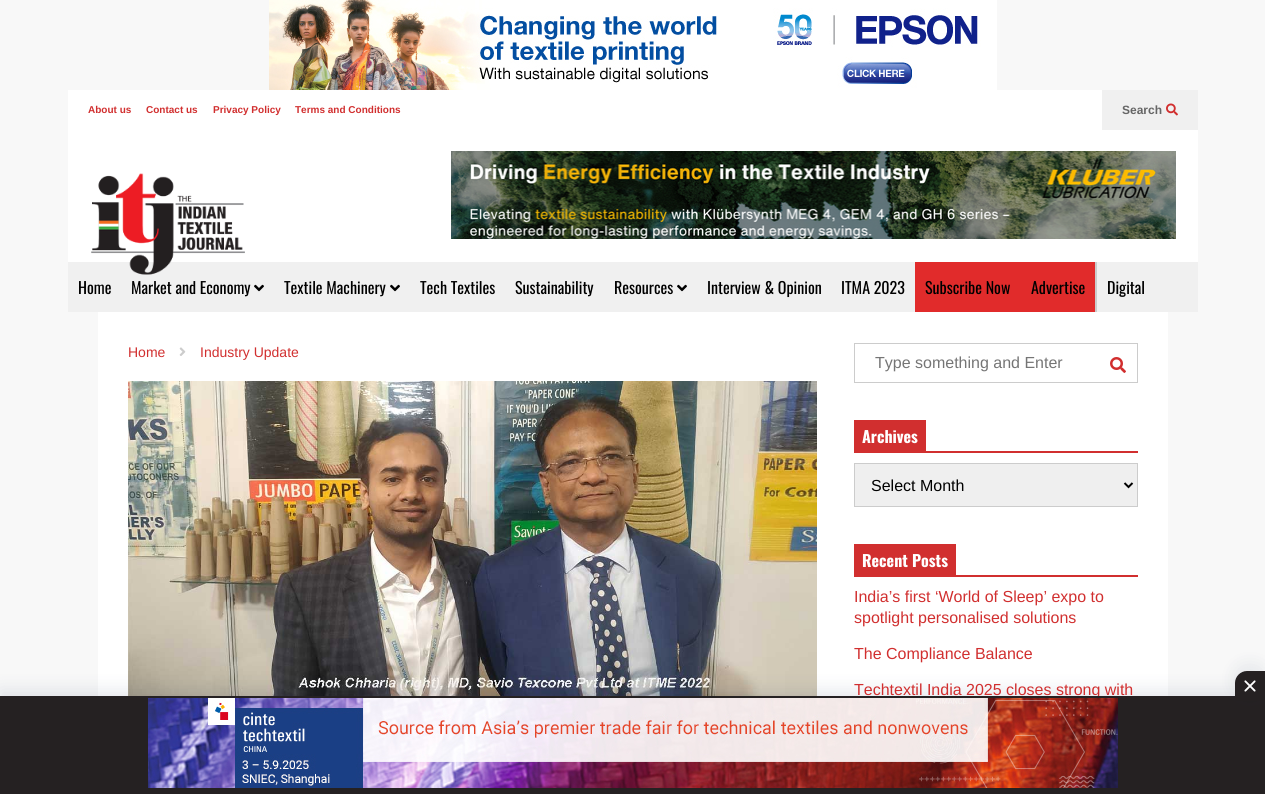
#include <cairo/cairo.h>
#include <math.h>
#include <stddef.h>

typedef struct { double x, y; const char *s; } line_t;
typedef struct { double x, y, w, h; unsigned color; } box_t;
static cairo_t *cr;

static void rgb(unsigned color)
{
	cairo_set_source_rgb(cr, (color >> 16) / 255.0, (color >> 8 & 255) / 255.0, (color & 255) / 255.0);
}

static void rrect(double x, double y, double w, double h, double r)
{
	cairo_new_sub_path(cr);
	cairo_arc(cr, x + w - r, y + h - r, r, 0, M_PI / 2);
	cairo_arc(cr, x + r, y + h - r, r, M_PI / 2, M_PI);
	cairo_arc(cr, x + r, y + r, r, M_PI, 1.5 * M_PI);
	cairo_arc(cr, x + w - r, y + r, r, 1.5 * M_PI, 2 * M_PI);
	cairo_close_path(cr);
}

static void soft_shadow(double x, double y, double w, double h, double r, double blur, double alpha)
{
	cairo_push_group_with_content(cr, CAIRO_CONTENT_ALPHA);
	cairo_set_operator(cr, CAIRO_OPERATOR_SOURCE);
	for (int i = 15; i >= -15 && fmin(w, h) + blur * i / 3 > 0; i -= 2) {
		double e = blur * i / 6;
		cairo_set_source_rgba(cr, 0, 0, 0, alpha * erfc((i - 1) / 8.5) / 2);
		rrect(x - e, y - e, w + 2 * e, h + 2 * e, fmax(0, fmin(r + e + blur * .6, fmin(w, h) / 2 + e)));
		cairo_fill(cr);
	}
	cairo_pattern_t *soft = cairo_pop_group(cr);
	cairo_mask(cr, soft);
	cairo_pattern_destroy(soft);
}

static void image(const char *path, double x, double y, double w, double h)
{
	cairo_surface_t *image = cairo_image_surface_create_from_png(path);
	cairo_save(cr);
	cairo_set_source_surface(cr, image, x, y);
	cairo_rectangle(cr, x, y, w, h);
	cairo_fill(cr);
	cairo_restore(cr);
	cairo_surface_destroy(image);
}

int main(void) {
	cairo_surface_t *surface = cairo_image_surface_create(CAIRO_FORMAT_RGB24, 1265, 794);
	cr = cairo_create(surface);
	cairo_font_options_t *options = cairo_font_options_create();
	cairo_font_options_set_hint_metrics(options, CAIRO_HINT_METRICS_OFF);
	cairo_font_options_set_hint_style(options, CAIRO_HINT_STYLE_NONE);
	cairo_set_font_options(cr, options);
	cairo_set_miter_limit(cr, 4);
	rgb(0xf8f8f8);
	cairo_paint(cr);
	image("img/1.png", 269, 0, 728, 90);
	rgb(0xffffff);
	cairo_rectangle(cr, 68, 90, 1130, 172);
	cairo_fill(cr);
	rgb(0xf0f0f0);
	cairo_rectangle(cr, 1102, 90, 96, 40);
	cairo_fill(cr);
	image("img/2.png", 1166, 103, 12, 13);
	cairo_rectangle(cr, 68, 262, 1130, 50);
	cairo_fill(cr);
	image("img/3.png", 91, 173, 154, 102);
	image("img/4.png", 451, 151, 725, 88);
	image("img/5.png", 254, 284, 10, 8);
	image("img/5.png", 390, 284, 10, 8);
	image("img/5.png", 677, 284, 10, 8);
	{
		static const box_t items[] = {
			{915, 262, 180, 50, 0xe12b2b},
			{1095, 262, 2, 50, 0xcccccc},
			{98, 312, 1070, 384, 0xffffff},
		};
		for (size_t i = 0; i < sizeof items / sizeof *items; i++) {
			rgb(items[i].color);
			cairo_rectangle(cr, items[i].x, items[i].y, items[i].w, items[i].h);
			cairo_fill(cr);
		}
	}
	image("img/6.png", 179, 347, 7, 9);
	image("img/7.png", 128, 381, 689, 315);
	cairo_rectangle(cr, 854.5, 343.5, 283, 39);
	rgb(0xcccccc);
	cairo_set_line_width(cr, 1);
	cairo_stroke(cr);
	image("img/8.png", 1110, 357, 16, 16);
	rgb(0xd12f2f);
	cairo_rectangle(cr, 854, 451, 284, 2);
	cairo_fill(cr);
	cairo_rectangle(cr, 854, 420, 72, 31);
	cairo_fill(cr);
	rgb(0xefefef);
	cairo_rectangle(cr, 854.5, 463.5, 283, 43);
	cairo_fill_preserve(cr);
	rgb(0xcccccc);
	cairo_stroke(cr);
	cairo_new_path(cr);
	cairo_move_to(cr, 1124.5, 483);
	cairo_line_to(cr, 1128.5, 487);
	cairo_line_to(cr, 1132.5, 483);
	rgb(0x000000);
	cairo_set_line_width(cr, 2);
	cairo_stroke(cr);
	rgb(0xd12f2f);
	cairo_rectangle(cr, 854, 575, 284, 2);
	cairo_fill(cr);
	cairo_rectangle(cr, 854, 544, 102, 31);
	cairo_fill(cr);
	rgb(0x09204c);
	soft_shadow(0, 690, 1265, 98, 0, 9, 0.1);
	cairo_select_font_face(cr, "Liberation Sans", CAIRO_FONT_SLANT_NORMAL, CAIRO_FONT_WEIGHT_BOLD);
	cairo_set_font_size(cr, 10);
	rgb(0xd12f2f);
	{
		static const line_t items[] = {
			{88, 113, "About us"},
			{146, 113, "Contact us"},
			{213, 113, "Privacy Policy"},
			{295, 113, "Terms and Conditions"},
		};
		for (size_t i = 0; i < sizeof items / sizeof *items; i++) {
			cairo_move_to(cr, items[i].x, items[i].y);
			cairo_show_text(cr, items[i].s);
		}
	}
	cairo_set_font_size(cr, 12);
	rgb(0x666666);
	cairo_move_to(cr, 1122, 114);
	cairo_show_text(cr, "Search");
	cairo_select_font_face(cr, "Oswald", CAIRO_FONT_SLANT_NORMAL, CAIRO_FONT_WEIGHT_NORMAL);
	cairo_set_font_size(cr, 16);
	rgb(0x000000);
	{
		static const line_t items[] = {
			{78, 294, "Home"},
			{131, 294, "Market and Economy"},
			{284, 294, "Textile Machinery"},
			{420, 294, "Tech Textiles"},
			{515, 294, "Sustainability"},
			{614, 294, "Resources"},
			{707, 294, "Interview & Opinion"},
			{841, 294, "ITMA 2023"},
			{925, 294, "Subscribe Now"},
			{1031, 294, "Advertise"},
			{1107, 294, "Digital"},
		};
		for (size_t i = 0; i < sizeof items / sizeof *items; i++) {
			cairo_move_to(cr, items[i].x, items[i].y);
			cairo_show_text(cr, items[i].s);
		}
	}
	cairo_select_font_face(cr, "Liberation Sans", CAIRO_FONT_SLANT_NORMAL, CAIRO_FONT_WEIGHT_NORMAL);
	cairo_set_font_size(cr, 14);
	rgb(0xd12f2f);
	cairo_move_to(cr, 128, 357);
	cairo_show_text(cr, "Home");
	cairo_move_to(cr, 200, 357);
	cairo_show_text(cr, "Industry Update");
	cairo_set_font_size(cr, 16);
	rgb(0x757575);
	cairo_move_to(cr, 875, 368);
	cairo_show_text(cr, "Type something and Enter");
	cairo_select_font_face(cr, "Oswald", CAIRO_FONT_SLANT_NORMAL, CAIRO_FONT_WEIGHT_BOLD);
	rgb(0xffffff);
	cairo_move_to(cr, 862, 443);
	cairo_show_text(cr, "Archives");
	cairo_select_font_face(cr, "Liberation Sans", CAIRO_FONT_SLANT_NORMAL, CAIRO_FONT_WEIGHT_NORMAL);
	rgb(0x000000);
	cairo_move_to(cr, 871, 491);
	cairo_show_text(cr, "Select Month");
	cairo_select_font_face(cr, "Oswald", CAIRO_FONT_SLANT_NORMAL, CAIRO_FONT_WEIGHT_BOLD);
	rgb(0xffffff);
	cairo_move_to(cr, 862, 567);
	cairo_show_text(cr, "Recent Posts");
	cairo_select_font_face(cr, "Liberation Sans", CAIRO_FONT_SLANT_NORMAL, CAIRO_FONT_WEIGHT_NORMAL);
	rgb(0xd12f2f);
	{
		static const line_t items[] = {
			{854, 602, "India’s first ‘World of Sleep’ expo to"},
			{854, 623, "spotlight personalised solutions"},
			{854, 659, "The Compliance Balance"},
			{854, 695, "Techtextil India 2025 closes strong with"},
		};
		for (size_t i = 0; i < sizeof items / sizeof *items; i++) {
			cairo_move_to(cr, items[i].x, items[i].y);
			cairo_show_text(cr, items[i].s);
		}
	}
	rgb(0x252122);
	cairo_rectangle(cr, 0, 696, 1265, 98);
	cairo_fill(cr);
	rgb(0x09204c);
	soft_shadow(1235, 665, 30, 30, 12, 9, 0.08);
	rgb(0x252122);
	cairo_new_path(cr);
	cairo_move_to(cr, 1247, 671);
	cairo_line_to(cr, 1265, 671);
	cairo_line_to(cr, 1265, 701);
	cairo_line_to(cr, 1235, 701);
	cairo_line_to(cr, 1235, 683);
	cairo_curve_to(cr, 1235, 676.5, 1240.5, 671, 1247, 671);
	cairo_close_path(cr);
	cairo_fill(cr);
	image("img/9.png", 1244, 680, 12, 12);
	image("img/10.png", 148, 698, 970, 90);
	cairo_surface_write_to_png(surface, "page.png");
	cairo_font_options_destroy(options);
	cairo_destroy(cr);
	cairo_surface_destroy(surface);
	return 0;
}
